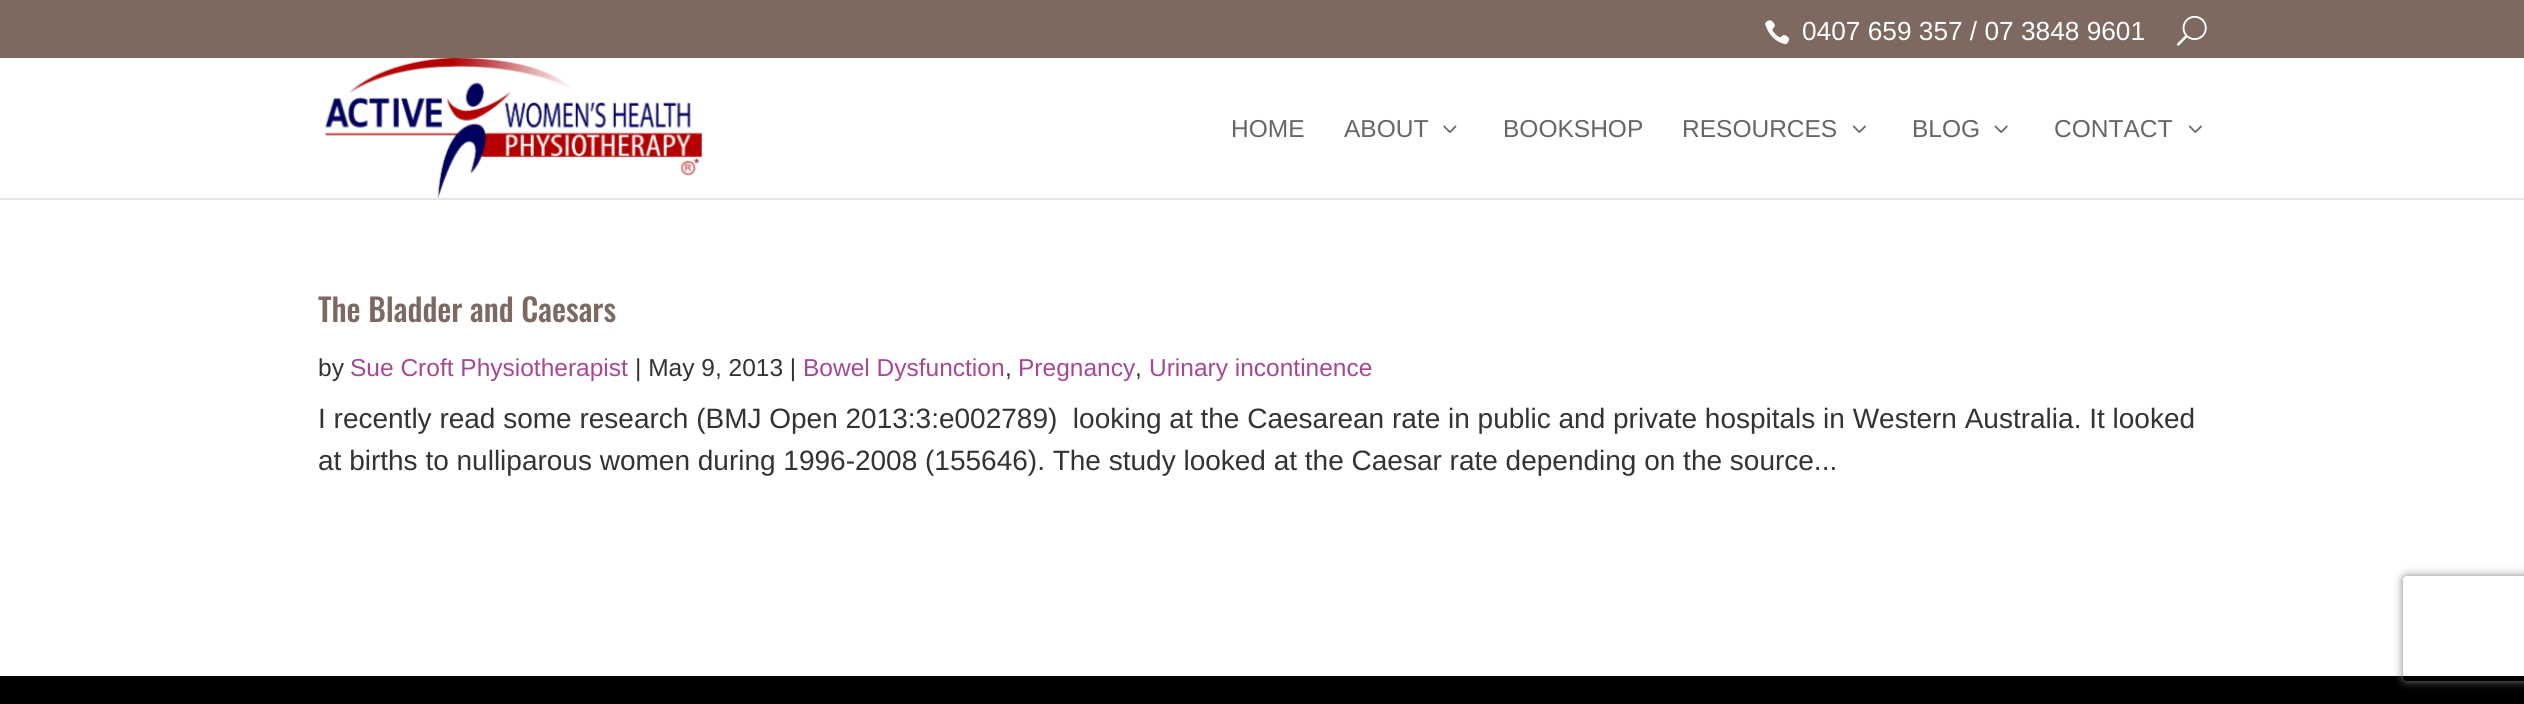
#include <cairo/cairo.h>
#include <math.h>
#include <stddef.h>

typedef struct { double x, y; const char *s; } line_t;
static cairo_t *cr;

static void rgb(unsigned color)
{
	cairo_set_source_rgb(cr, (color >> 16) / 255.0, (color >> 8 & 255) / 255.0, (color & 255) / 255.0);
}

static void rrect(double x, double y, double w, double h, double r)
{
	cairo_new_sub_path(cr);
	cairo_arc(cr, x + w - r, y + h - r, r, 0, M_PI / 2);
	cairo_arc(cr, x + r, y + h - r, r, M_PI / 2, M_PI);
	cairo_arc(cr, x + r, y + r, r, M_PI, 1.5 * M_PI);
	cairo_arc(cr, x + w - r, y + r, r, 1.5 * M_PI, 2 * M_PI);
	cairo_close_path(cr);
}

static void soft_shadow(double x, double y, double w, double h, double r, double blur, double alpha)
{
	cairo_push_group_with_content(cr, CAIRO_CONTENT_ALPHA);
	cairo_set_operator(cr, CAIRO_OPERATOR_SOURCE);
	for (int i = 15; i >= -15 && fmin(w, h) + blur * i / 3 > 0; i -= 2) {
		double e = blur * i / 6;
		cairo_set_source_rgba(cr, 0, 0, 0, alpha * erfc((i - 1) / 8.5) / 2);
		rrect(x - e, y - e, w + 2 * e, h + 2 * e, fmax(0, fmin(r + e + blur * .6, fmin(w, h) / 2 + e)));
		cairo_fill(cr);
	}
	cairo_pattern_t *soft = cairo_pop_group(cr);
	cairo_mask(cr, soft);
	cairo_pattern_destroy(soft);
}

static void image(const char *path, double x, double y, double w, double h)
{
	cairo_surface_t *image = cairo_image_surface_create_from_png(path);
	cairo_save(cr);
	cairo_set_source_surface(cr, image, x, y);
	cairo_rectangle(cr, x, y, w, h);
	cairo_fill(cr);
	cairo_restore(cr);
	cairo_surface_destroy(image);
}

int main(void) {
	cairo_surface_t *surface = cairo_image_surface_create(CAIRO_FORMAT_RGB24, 2524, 704);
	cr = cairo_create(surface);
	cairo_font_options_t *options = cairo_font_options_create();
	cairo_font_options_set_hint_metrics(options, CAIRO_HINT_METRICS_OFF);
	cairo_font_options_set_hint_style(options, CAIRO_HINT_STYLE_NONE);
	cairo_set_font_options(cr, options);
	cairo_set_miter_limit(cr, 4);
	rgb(0xffffff);
	cairo_paint(cr);
	rgb(0x7d695f);
	cairo_rectangle(cr, 0, 0, 2524, 58);
	cairo_fill(cr);
	image("img/1.png", 1765, 20, 25, 25);
	image("img/2.png", 2176, 15, 31, 31);
	rgb(0xe6e6e6);
	cairo_rectangle(cr, 0, 198, 2524, 2);
	cairo_fill(cr);
	image("img/3.png", 324, 58, 378, 140);
	image("img/4.png", 1443, 125, 14, 8);
	image("img/5.png", 1852, 125, 14, 8);
	image("img/6.png", 1994, 125, 14, 8);
	image("img/5.png", 2188, 125, 14, 8);
	rgb(0x000000);
	cairo_rectangle(cr, 0, 676, 2524, 28);
	cairo_fill(cr);
	cairo_save(cr);
	cairo_set_fill_rule(cr, CAIRO_FILL_RULE_EVEN_ODD);
	cairo_new_path(cr);
	cairo_move_to(cr, 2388, 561);
	cairo_line_to(cr, 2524, 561);
	cairo_line_to(cr, 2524, 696);
	cairo_line_to(cr, 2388, 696);
	cairo_close_path(cr);
	cairo_move_to(cr, 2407, 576);
	cairo_line_to(cr, 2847, 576);
	cairo_curve_to(cr, 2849, 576, 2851, 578, 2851, 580);
	cairo_line_to(cr, 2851, 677);
	cairo_curve_to(cr, 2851, 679, 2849, 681, 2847, 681);
	cairo_line_to(cr, 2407, 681);
	cairo_curve_to(cr, 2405, 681, 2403, 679, 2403, 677);
	cairo_line_to(cr, 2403, 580);
	cairo_curve_to(cr, 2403, 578, 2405, 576, 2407, 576);
	cairo_close_path(cr);
	cairo_clip(cr);
	rgb(0x808080);
	soft_shadow(2403, 576, 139, 105, 4, 4.5, 1);
	cairo_restore(cr);
	cairo_select_font_face(cr, "Liberation Sans", CAIRO_FONT_SLANT_NORMAL, CAIRO_FONT_WEIGHT_NORMAL);
	cairo_set_font_size(cr, 26.25);
	rgb(0xffffff);
	cairo_move_to(cr, 1802, 40);
	cairo_show_text(cr, "0407 659 357 / 07 3848 9601");
	cairo_set_font_size(cr, 24.5);
	rgb(0x666666);
	{
		static const line_t items[] = {
			{1231, 137, "HOME"},
			{1344, 137, "ABOUT"},
			{1503, 137, "BOOKSHOP"},
			{1682, 137, "RESOURCES"},
			{1912, 137, "BLOG"},
			{2054, 137, "CONTACT"},
		};
		for (size_t i = 0; i < sizeof items / sizeof *items; i++) {
			cairo_move_to(cr, items[i].x, items[i].y);
			cairo_show_text(cr, items[i].s);
		}
	}
	cairo_select_font_face(cr, "Oswald Medium", CAIRO_FONT_SLANT_NORMAL, CAIRO_FONT_WEIGHT_NORMAL);
	cairo_set_font_size(cr, 31.5);
	rgb(0x7d695f);
	cairo_move_to(cr, 318, 322);
	cairo_show_text(cr, "The Bladder and Caesars");
	cairo_select_font_face(cr, "Liberation Sans", CAIRO_FONT_SLANT_NORMAL, CAIRO_FONT_WEIGHT_NORMAL);
	cairo_set_font_size(cr, 24.5);
	rgb(0x333333);
	cairo_move_to(cr, 318, 376);
	cairo_show_text(cr, "by");
	rgb(0xa64894);
	cairo_move_to(cr, 350, 376);
	cairo_show_text(cr, "Sue Croft Physiotherapist");
	rgb(0x333333);
	cairo_move_to(cr, 635, 376);
	cairo_show_text(cr, "| May 9, 2013 |");
	rgb(0xa64894);
	cairo_move_to(cr, 803, 376);
	cairo_show_text(cr, "Bowel Dysfunction");
	rgb(0x333333);
	cairo_move_to(cr, 1005, 376);
	cairo_show_text(cr, ",");
	rgb(0xa64894);
	cairo_move_to(cr, 1018, 376);
	cairo_show_text(cr, "Pregnancy");
	rgb(0x333333);
	cairo_move_to(cr, 1135, 376);
	cairo_show_text(cr, ",");
	rgb(0xa64894);
	cairo_move_to(cr, 1149, 376);
	cairo_show_text(cr, "Urinary incontinence");
	cairo_set_font_size(cr, 28);
	rgb(0x333333);
	cairo_move_to(cr, 318, 428);
	cairo_show_text(cr, "I recently read some research (BMJ Open 2013:3:e002789)  looking at the Caesarean rate in public and private hospitals in Western Australia. It looked");
	cairo_move_to(cr, 318, 470);
	cairo_show_text(cr, "at births to nulliparous women during 1996-2008 (155646). The study looked at the Caesar rate depending on the source...");
	cairo_surface_write_to_png(surface, "page.png");
	cairo_font_options_destroy(options);
	cairo_destroy(cr);
	cairo_surface_destroy(surface);
	return 0;
}
